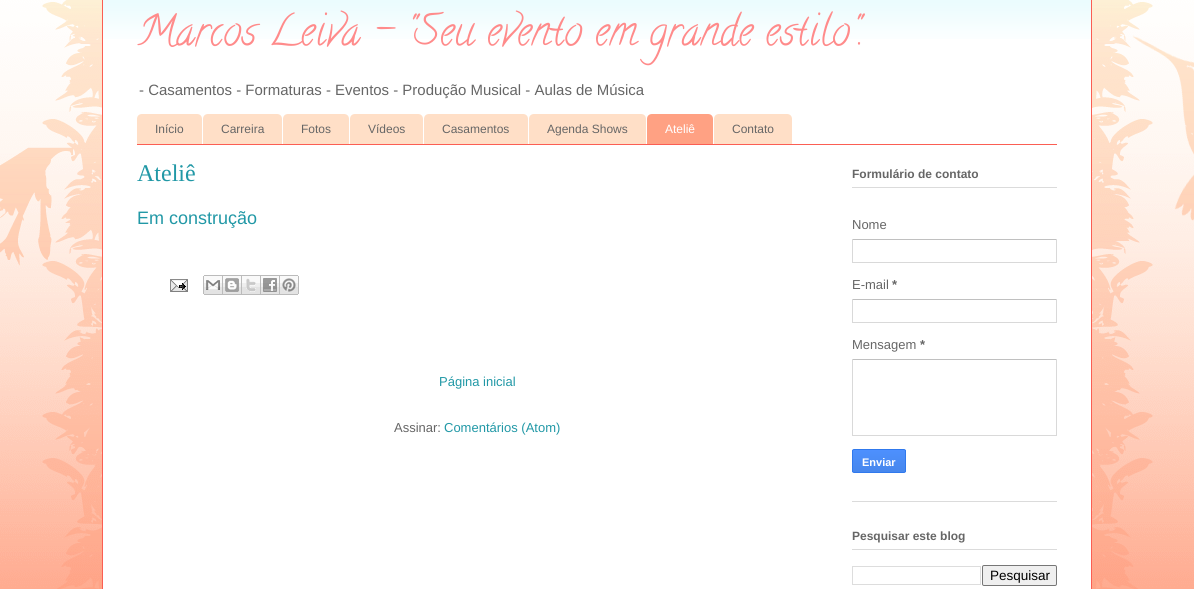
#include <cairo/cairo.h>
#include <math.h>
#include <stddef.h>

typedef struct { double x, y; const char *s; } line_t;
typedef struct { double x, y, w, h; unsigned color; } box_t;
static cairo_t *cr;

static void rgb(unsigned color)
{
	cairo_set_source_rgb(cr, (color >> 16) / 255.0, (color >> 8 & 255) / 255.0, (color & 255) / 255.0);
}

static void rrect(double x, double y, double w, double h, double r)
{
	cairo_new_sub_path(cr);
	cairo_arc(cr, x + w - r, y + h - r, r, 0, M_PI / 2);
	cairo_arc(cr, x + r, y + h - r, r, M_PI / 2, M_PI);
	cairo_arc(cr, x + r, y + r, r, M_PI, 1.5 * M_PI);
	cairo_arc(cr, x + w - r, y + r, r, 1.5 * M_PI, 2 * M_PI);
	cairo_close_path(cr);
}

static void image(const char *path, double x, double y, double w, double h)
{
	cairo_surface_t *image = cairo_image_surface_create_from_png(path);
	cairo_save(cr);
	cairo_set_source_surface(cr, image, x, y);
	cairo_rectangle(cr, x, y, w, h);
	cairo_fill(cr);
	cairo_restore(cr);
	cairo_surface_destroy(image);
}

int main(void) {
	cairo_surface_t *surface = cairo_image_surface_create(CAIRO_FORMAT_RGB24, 1194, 589);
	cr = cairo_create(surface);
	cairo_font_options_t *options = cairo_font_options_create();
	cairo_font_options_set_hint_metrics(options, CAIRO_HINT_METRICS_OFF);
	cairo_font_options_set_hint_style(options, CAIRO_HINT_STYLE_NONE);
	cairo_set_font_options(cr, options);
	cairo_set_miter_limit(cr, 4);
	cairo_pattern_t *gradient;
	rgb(0xffffff);
	cairo_paint(cr);
	image("img/1.png", 0, 0, 1194, 589);
	image("img/2.png", 0, 0, 102, 589);
	rgb(0xffffff);
	cairo_rectangle(cr, 103, 0, 988, 589);
	cairo_fill(cr);
	image("img/3.png", 103, 0, 988, 39);
	rgb(0xfb5e53);
	cairo_rectangle(cr, 1091, 0, 1, 589);
	cairo_fill(cr);
	cairo_rectangle(cr, 102, 0, 1, 589);
	cairo_fill(cr);
	image("img/4.png", 1092, 0, 102, 589);
	cairo_rectangle(cr, 137, 144, 920, 1);
	cairo_fill(cr);
	rgb(0xffdfc7);
	cairo_new_path(cr);
	cairo_move_to(cr, 142, 114);
	cairo_line_to(cr, 197, 114);
	cairo_curve_to(cr, 200, 114, 202, 116, 202, 119);
	cairo_line_to(cr, 202, 144);
	cairo_line_to(cr, 137, 144);
	cairo_line_to(cr, 137, 119);
	cairo_curve_to(cr, 137, 116, 139, 114, 142, 114);
	cairo_close_path(cr);
	cairo_fill(cr);
	cairo_new_path(cr);
	cairo_move_to(cr, 208, 114);
	cairo_line_to(cr, 277, 114);
	cairo_curve_to(cr, 280, 114, 282, 116, 282, 119);
	cairo_line_to(cr, 282, 144);
	cairo_line_to(cr, 203, 144);
	cairo_line_to(cr, 203, 119);
	cairo_curve_to(cr, 203, 116, 205, 114, 208, 114);
	cairo_close_path(cr);
	cairo_fill(cr);
	cairo_new_path(cr);
	cairo_move_to(cr, 288, 114);
	cairo_line_to(cr, 344, 114);
	cairo_curve_to(cr, 347, 114, 349, 116, 349, 119);
	cairo_line_to(cr, 349, 144);
	cairo_line_to(cr, 283, 144);
	cairo_line_to(cr, 283, 119);
	cairo_curve_to(cr, 283, 116, 285, 114, 288, 114);
	cairo_close_path(cr);
	cairo_fill(cr);
	cairo_new_path(cr);
	cairo_move_to(cr, 355, 114);
	cairo_line_to(cr, 418, 114);
	cairo_curve_to(cr, 421, 114, 423, 116, 423, 119);
	cairo_line_to(cr, 423, 144);
	cairo_line_to(cr, 350, 144);
	cairo_line_to(cr, 350, 119);
	cairo_curve_to(cr, 350, 116, 352, 114, 355, 114);
	cairo_close_path(cr);
	cairo_fill(cr);
	cairo_new_path(cr);
	cairo_move_to(cr, 429, 114);
	cairo_line_to(cr, 523, 114);
	cairo_curve_to(cr, 526, 114, 528, 116, 528, 119);
	cairo_line_to(cr, 528, 144);
	cairo_line_to(cr, 424, 144);
	cairo_line_to(cr, 424, 119);
	cairo_curve_to(cr, 424, 116, 426, 114, 429, 114);
	cairo_close_path(cr);
	cairo_fill(cr);
	cairo_new_path(cr);
	cairo_move_to(cr, 534, 114);
	cairo_line_to(cr, 641, 114);
	cairo_curve_to(cr, 644, 114, 646, 116, 646, 119);
	cairo_line_to(cr, 646, 144);
	cairo_line_to(cr, 529, 144);
	cairo_line_to(cr, 529, 119);
	cairo_curve_to(cr, 529, 116, 531, 114, 534, 114);
	cairo_close_path(cr);
	cairo_fill(cr);
	rgb(0xffa183);
	cairo_new_path(cr);
	cairo_move_to(cr, 652, 114);
	cairo_line_to(cr, 708, 114);
	cairo_curve_to(cr, 711, 114, 713, 116, 713, 119);
	cairo_line_to(cr, 713, 144);
	cairo_line_to(cr, 647, 144);
	cairo_line_to(cr, 647, 119);
	cairo_curve_to(cr, 647, 116, 649, 114, 652, 114);
	cairo_close_path(cr);
	cairo_fill(cr);
	rgb(0xffdfc7);
	cairo_new_path(cr);
	cairo_move_to(cr, 719, 114);
	cairo_line_to(cr, 787, 114);
	cairo_curve_to(cr, 790, 114, 792, 116, 792, 119);
	cairo_line_to(cr, 792, 144);
	cairo_line_to(cr, 714, 144);
	cairo_line_to(cr, 714, 119);
	cairo_curve_to(cr, 714, 116, 716, 114, 719, 114);
	cairo_close_path(cr);
	cairo_fill(cr);
	image("img/5.png", 170, 279, 18, 13);
	image("img/6.png", 203, 275, 20, 20);
	image("img/7.png", 223, 275, 19, 20);
	image("img/8.png", 242, 275, 19, 20);
	image("img/9.png", 261, 275, 19, 20);
	image("img/10.png", 280, 275, 19, 20);
	{
		static const box_t items[] = {
			{852, 501, 205, 1, 0xdbdbdb},
			{852, 187, 205, 1, 0xdbdbdb},
			{852, 239, 205, 1, 0xc0c0c0},
			{1056, 239, 1, 24, 0xd9d9d9},
			{852, 262, 205, 1, 0xd9d9d9},
			{852, 239, 1, 24, 0xd9d9d9},
			{852, 299, 205, 1, 0xc0c0c0},
			{1056, 299, 1, 24, 0xd9d9d9},
			{852, 322, 205, 1, 0xd9d9d9},
			{852, 299, 1, 24, 0xd9d9d9},
			{852, 359, 205, 1, 0xc0c0c0},
			{1056, 359, 1, 77, 0xd9d9d9},
			{852, 435, 205, 1, 0xd9d9d9},
			{852, 359, 1, 77, 0xd9d9d9},
		};
		for (size_t i = 0; i < sizeof items / sizeof *items; i++) {
			rgb(items[i].color);
			cairo_rectangle(cr, items[i].x, items[i].y, items[i].w, items[i].h);
			cairo_fill(cr);
		}
	}
	cairo_save(cr);
	rrect(852, 449, 54, 24, 2);
	cairo_clip(cr);
	gradient = cairo_pattern_create_linear(879, 450, 879, 472);
	cairo_pattern_add_color_stop_rgba(gradient, 0, 0.302, 0.565, 0.996, 1);
	cairo_pattern_add_color_stop_rgba(gradient, 1, 0.278, 0.529, 0.929, 1);
	cairo_set_source(cr, gradient);
	cairo_pattern_destroy(gradient);
	cairo_rectangle(cr, 852, 450, 54, 22);
	cairo_fill(cr);
	cairo_restore(cr);
	rrect(852.5, 449.5, 53, 23, 1.5);
	rgb(0x3079ed);
	cairo_set_line_width(cr, 1);
	cairo_stroke(cr);
	rgb(0xdbdbdb);
	cairo_rectangle(cr, 852, 549, 205, 1);
	cairo_fill(cr);
	cairo_rectangle(cr, 852.5, 566.5, 128, 18);
	rgb(0xdddddd);
	cairo_stroke(cr);
	rgb(0xefefef);
	rrect(982.5, 565.5, 74, 20, 1.5);
	cairo_fill_preserve(cr);
	rgb(0x767676);
	cairo_stroke(cr);
	cairo_select_font_face(cr, "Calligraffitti", CAIRO_FONT_SLANT_NORMAL, CAIRO_FONT_WEIGHT_NORMAL);
	cairo_set_font_size(cr, 42);
	rgb(0xff8b8b);
	cairo_move_to(cr, 137, 44);
	cairo_show_text(cr, "Marcos Leiva - \"Seu evento em grande estilo\".");
	cairo_select_font_face(cr, "Liberation Sans", CAIRO_FONT_SLANT_NORMAL, CAIRO_FONT_WEIGHT_NORMAL);
	cairo_set_font_size(cr, 14.95);
	rgb(0x666666);
	cairo_move_to(cr, 139, 95);
	cairo_show_text(cr, "- Casamentos - Formaturas - Eventos - Produção Musical - Aulas de Música");
	cairo_set_font_size(cr, 12);
	{
		static const line_t items[] = {
			{155, 133, "Início"},
			{221, 133, "Carreira"},
			{301, 133, "Fotos"},
			{368, 133, "Vídeos"},
			{442, 133, "Casamentos"},
			{547, 133, "Agenda Shows"},
		};
		for (size_t i = 0; i < sizeof items / sizeof *items; i++) {
			cairo_move_to(cr, items[i].x, items[i].y);
			cairo_show_text(cr, items[i].s);
		}
	}
	rgb(0xffffff);
	cairo_move_to(cr, 665, 133);
	cairo_show_text(cr, "Ateliê");
	rgb(0x666666);
	cairo_move_to(cr, 732, 133);
	cairo_show_text(cr, "Contato");
	cairo_select_font_face(cr, "Liberation Serif", CAIRO_FONT_SLANT_NORMAL, CAIRO_FONT_WEIGHT_NORMAL);
	cairo_set_font_size(cr, 24);
	rgb(0x2198a6);
	cairo_move_to(cr, 137, 181);
	cairo_show_text(cr, "Ateliê");
	cairo_select_font_face(cr, "Liberation Sans", CAIRO_FONT_SLANT_NORMAL, CAIRO_FONT_WEIGHT_NORMAL);
	cairo_set_font_size(cr, 18);
	cairo_move_to(cr, 137, 224);
	cairo_show_text(cr, "Em construção");
	cairo_set_font_size(cr, 13);
	cairo_move_to(cr, 439, 386);
	cairo_show_text(cr, "Página inicial");
	rgb(0x666666);
	cairo_move_to(cr, 394, 432);
	cairo_show_text(cr, "Assinar:");
	rgb(0x2198a6);
	cairo_move_to(cr, 444, 432);
	cairo_show_text(cr, "Comentários (Atom)");
	cairo_select_font_face(cr, "Liberation Sans", CAIRO_FONT_SLANT_NORMAL, CAIRO_FONT_WEIGHT_BOLD);
	cairo_set_font_size(cr, 12);
	rgb(0x666666);
	cairo_move_to(cr, 852, 178);
	cairo_show_text(cr, "Formulário de contato");
	cairo_select_font_face(cr, "Liberation Sans", CAIRO_FONT_SLANT_NORMAL, CAIRO_FONT_WEIGHT_NORMAL);
	cairo_set_font_size(cr, 13);
	cairo_move_to(cr, 852, 229);
	cairo_show_text(cr, "Nome");
	cairo_move_to(cr, 852, 289);
	cairo_show_text(cr, "E-mail");
	cairo_select_font_face(cr, "Liberation Sans", CAIRO_FONT_SLANT_NORMAL, CAIRO_FONT_WEIGHT_BOLD);
	cairo_move_to(cr, 892, 289);
	cairo_show_text(cr, "*");
	cairo_select_font_face(cr, "Liberation Sans", CAIRO_FONT_SLANT_NORMAL, CAIRO_FONT_WEIGHT_NORMAL);
	cairo_move_to(cr, 852, 349);
	cairo_show_text(cr, "Mensagem");
	cairo_select_font_face(cr, "Liberation Sans", CAIRO_FONT_SLANT_NORMAL, CAIRO_FONT_WEIGHT_BOLD);
	cairo_move_to(cr, 920, 349);
	cairo_show_text(cr, "*");
	cairo_set_font_size(cr, 11);
	rgb(0xffffff);
	cairo_move_to(cr, 862, 466);
	cairo_show_text(cr, "Enviar");
	cairo_set_font_size(cr, 12);
	rgb(0x666666);
	cairo_move_to(cr, 852, 540);
	cairo_show_text(cr, "Pesquisar este blog");
	cairo_select_font_face(cr, "Liberation Sans", CAIRO_FONT_SLANT_NORMAL, CAIRO_FONT_WEIGHT_NORMAL);
	cairo_set_font_size(cr, 13.5);
	rgb(0x000000);
	cairo_move_to(cr, 990, 580);
	cairo_show_text(cr, "Pesquisar");
	cairo_surface_write_to_png(surface, "page.png");
	cairo_font_options_destroy(options);
	cairo_destroy(cr);
	cairo_surface_destroy(surface);
	return 0;
}
